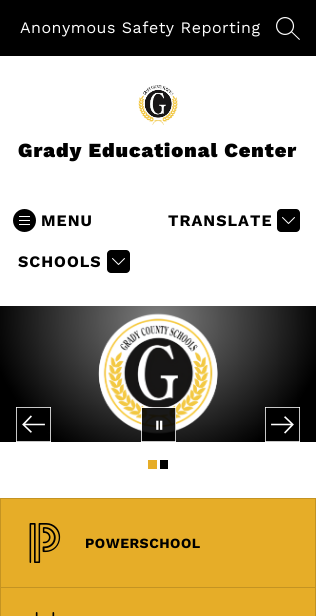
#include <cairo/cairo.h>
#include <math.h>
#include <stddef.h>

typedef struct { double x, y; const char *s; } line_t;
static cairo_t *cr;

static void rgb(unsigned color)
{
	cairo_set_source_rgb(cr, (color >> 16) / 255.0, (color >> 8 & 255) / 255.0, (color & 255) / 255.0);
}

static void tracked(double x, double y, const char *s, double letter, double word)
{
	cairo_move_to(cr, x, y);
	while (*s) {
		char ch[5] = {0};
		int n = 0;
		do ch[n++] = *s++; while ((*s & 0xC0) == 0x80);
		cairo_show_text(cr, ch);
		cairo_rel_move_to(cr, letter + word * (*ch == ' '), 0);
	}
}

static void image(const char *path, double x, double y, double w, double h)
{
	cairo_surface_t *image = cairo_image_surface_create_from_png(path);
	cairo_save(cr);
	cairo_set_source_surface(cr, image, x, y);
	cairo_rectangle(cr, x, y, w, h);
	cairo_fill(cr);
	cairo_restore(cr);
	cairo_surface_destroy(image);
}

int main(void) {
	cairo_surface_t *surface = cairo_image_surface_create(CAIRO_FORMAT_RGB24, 316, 616);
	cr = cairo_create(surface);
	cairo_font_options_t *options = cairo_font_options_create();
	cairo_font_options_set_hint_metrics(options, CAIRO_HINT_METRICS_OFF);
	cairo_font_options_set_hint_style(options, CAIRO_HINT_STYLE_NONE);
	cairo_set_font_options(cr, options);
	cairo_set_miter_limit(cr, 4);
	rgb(0xffffff);
	cairo_paint(cr);
	rgb(0x000000);
	cairo_rectangle(cr, 0, 0, 316, 56);
	cairo_fill(cr);
	image("img/1.png", 276, 17, 24, 23);
	image("img/2.png", 138, 85, 40, 40);
	image("img/3.png", 13, 209, 23, 23);
	image("img/4.png", 107, 250, 23, 23);
	image("img/4.png", 277, 209, 23, 23);
	image("img/5.png", 0, 306, 316, 136);
	cairo_rectangle(cr, 26, 407, 25, 25);
	cairo_fill(cr);
	image("img/6.png", 16, 407, 35, 35);
	image("img/7.png", 141, 407, 35, 35);
	cairo_rectangle(cr, 265, 407, 25, 25);
	cairo_fill(cr);
	image("img/8.png", 265, 407, 35, 35);
	rgb(0xe6ad28);
	cairo_rectangle(cr, 148, 460, 9, 9);
	cairo_fill(cr);
	rgb(0x000000);
	cairo_rectangle(cr, 160, 460, 8, 9);
	cairo_fill(cr);
	rgb(0xe6ad28);
	cairo_rectangle(cr, 0.5, 498.5, 315, 89);
	cairo_fill_preserve(cr);
	rgb(0xc49322);
	cairo_set_line_width(cr, 1);
	cairo_stroke(cr);
	image("img/9.png", 29, 523, 32, 40);
	rgb(0xe6ad28);
	cairo_rectangle(cr, 1, 588, 314, 28);
	cairo_fill(cr);
	rgb(0xc49322);
	cairo_new_path(cr);
	cairo_move_to(cr, 316, 588);
	cairo_line_to(cr, 316, 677);
	cairo_line_to(cr, 315, 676);
	cairo_line_to(cr, 315, 588);
	cairo_close_path(cr);
	cairo_fill(cr);
	cairo_new_path(cr);
	cairo_move_to(cr, 0, 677);
	cairo_line_to(cr, 0, 588);
	cairo_line_to(cr, 1, 588);
	cairo_line_to(cr, 1, 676);
	cairo_close_path(cr);
	cairo_fill(cr);
	image("img/10.png", 35, 612, 20, 4);
	cairo_select_font_face(cr, "Work Sans", CAIRO_FONT_SLANT_NORMAL, CAIRO_FONT_WEIGHT_NORMAL);
	cairo_set_font_size(cr, 16);
	rgb(0xffffff);
	tracked(20, 33, "Anonymous Safety Reporting", 0.5, 0);
	cairo_select_font_face(cr, "Work Sans Black", CAIRO_FONT_SLANT_NORMAL, CAIRO_FONT_WEIGHT_NORMAL);
	cairo_set_font_size(cr, 20);
	rgb(0x000000);
	tracked(18, 157, "Grady Educational Center", 1, 0);
	cairo_select_font_face(cr, "Work Sans", CAIRO_FONT_SLANT_NORMAL, CAIRO_FONT_WEIGHT_BOLD);
	cairo_set_font_size(cr, 16);
	{
		static const line_t items[] = {
			{41, 226, "MENU"},
			{18, 267, "SCHOOLS"},
			{168, 226, "TRANSLATE"},
		};
		for (size_t i = 0; i < sizeof items / sizeof *items; i++) {
			tracked(items[i].x, items[i].y, items[i].s, 1, 0);
		}
	}
	cairo_set_font_size(cr, 14);
	tracked(85, 548, "POWERSCHOOL", 0.5, 0);
	cairo_surface_write_to_png(surface, "page.png");
	cairo_font_options_destroy(options);
	cairo_destroy(cr);
	cairo_surface_destroy(surface);
	return 0;
}
